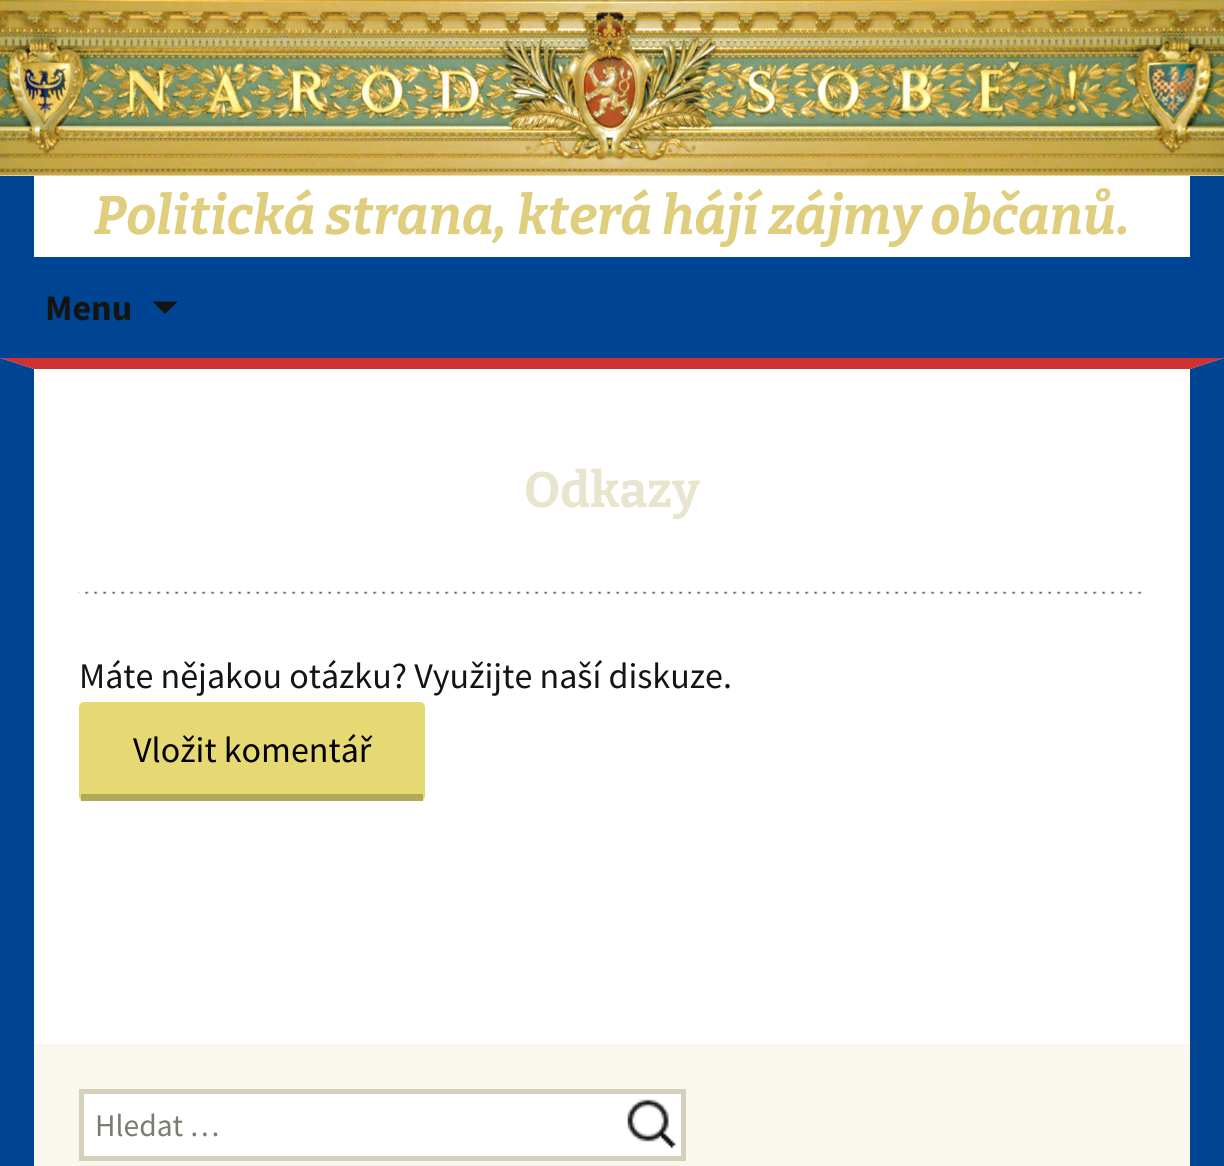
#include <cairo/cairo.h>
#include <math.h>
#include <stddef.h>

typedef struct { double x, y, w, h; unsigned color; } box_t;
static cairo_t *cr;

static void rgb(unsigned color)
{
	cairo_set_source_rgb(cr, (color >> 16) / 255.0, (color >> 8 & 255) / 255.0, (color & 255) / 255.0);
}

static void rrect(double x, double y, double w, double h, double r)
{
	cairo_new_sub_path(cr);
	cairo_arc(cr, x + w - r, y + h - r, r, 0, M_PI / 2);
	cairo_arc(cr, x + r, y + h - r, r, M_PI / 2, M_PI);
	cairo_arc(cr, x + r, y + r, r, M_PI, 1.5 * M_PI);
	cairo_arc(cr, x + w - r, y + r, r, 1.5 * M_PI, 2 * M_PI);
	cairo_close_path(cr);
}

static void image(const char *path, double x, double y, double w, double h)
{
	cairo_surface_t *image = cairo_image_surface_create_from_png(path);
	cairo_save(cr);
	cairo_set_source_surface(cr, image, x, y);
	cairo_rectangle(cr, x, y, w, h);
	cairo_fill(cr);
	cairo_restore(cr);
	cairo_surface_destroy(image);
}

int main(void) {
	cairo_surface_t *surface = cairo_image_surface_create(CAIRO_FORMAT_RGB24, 1224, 1166);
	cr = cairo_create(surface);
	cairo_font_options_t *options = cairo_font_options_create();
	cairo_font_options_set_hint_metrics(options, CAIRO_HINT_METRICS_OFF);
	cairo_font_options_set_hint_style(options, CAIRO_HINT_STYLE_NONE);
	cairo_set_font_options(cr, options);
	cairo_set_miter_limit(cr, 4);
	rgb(0xffffff);
	cairo_paint(cr);
	image("img/1.png", 0, 0, 1224, 176);
	{
		static const box_t items[] = {
			{1190, 176, 34, 81, 0x004494},
			{0, 176, 34, 81, 0x004494},
			{0, 257, 1224, 101, 0x004494},
		};
		for (size_t i = 0; i < sizeof items / sizeof *items; i++) {
			rgb(items[i].color);
			cairo_rectangle(cr, items[i].x, items[i].y, items[i].w, items[i].h);
			cairo_fill(cr);
		}
	}
	rgb(0x141412);
	cairo_new_path(cr);
	cairo_move_to(cr, 152.5, 301.5);
	cairo_line_to(cr, 165, 314);
	cairo_line_to(cr, 178, 301.5);
	cairo_close_path(cr);
	cairo_fill(cr);
	rgb(0xd13030);
	cairo_new_path(cr);
	cairo_move_to(cr, 0, 358);
	cairo_line_to(cr, 1224, 358);
	cairo_line_to(cr, 1190, 369);
	cairo_line_to(cr, 34, 369);
	cairo_close_path(cr);
	cairo_fill(cr);
	rgb(0x004494);
	cairo_new_path(cr);
	cairo_move_to(cr, 1224, 358);
	cairo_line_to(cr, 1224, 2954);
	cairo_line_to(cr, 1190, 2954);
	cairo_line_to(cr, 1190, 369);
	cairo_close_path(cr);
	cairo_fill(cr);
	cairo_new_path(cr);
	cairo_move_to(cr, 0, 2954);
	cairo_line_to(cr, 0, 358);
	cairo_line_to(cr, 34, 369);
	cairo_line_to(cr, 34, 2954);
	cairo_close_path(cr);
	cairo_fill(cr);
	image("img/2.png", 78, 591, 1064, 3);
	rgb(0xe6d873);
	rrect(79, 702, 346, 99, 5);
	cairo_fill(cr);
	{
		static const box_t items[] = {
			{81, 794, 342, 7, 0xb3a859},
			{34, 1044, 1156, 122, 0xfaf8ee},
			{84, 1094, 597, 62, 0xffffff},
		};
		for (size_t i = 0; i < sizeof items / sizeof *items; i++) {
			rgb(items[i].color);
			cairo_rectangle(cr, items[i].x, items[i].y, items[i].w, items[i].h);
			cairo_fill(cr);
		}
	}
	image("img/3.png", 627, 1099, 49, 50);
	cairo_rectangle(cr, 81.5, 1091.5, 602, 67);
	rgb(0xd4d0ba);
	cairo_set_line_width(cr, 5);
	cairo_stroke(cr);
	cairo_select_font_face(cr, "Bitter", CAIRO_FONT_SLANT_ITALIC, CAIRO_FONT_WEIGHT_BOLD);
	cairo_set_font_size(cr, 54);
	rgb(0xdfce7e);
	cairo_move_to(cr, 94, 234);
	cairo_show_text(cr, "Politická strana, která hájí zájmy občanů.");
	cairo_select_font_face(cr, "Source Sans Pro", CAIRO_FONT_SLANT_NORMAL, CAIRO_FONT_WEIGHT_BOLD);
	cairo_set_font_size(cr, 36);
	rgb(0x141412);
	cairo_move_to(cr, 45, 320);
	cairo_show_text(cr, "Menu");
	cairo_select_font_face(cr, "Bitter", CAIRO_FONT_SLANT_NORMAL, CAIRO_FONT_WEIGHT_BOLD);
	cairo_set_font_size(cr, 49.5);
	rgb(0xe8e5ce);
	cairo_move_to(cr, 524, 507);
	cairo_show_text(cr, "Odkazy");
	cairo_select_font_face(cr, "Source Sans Pro", CAIRO_FONT_SLANT_NORMAL, CAIRO_FONT_WEIGHT_NORMAL);
	cairo_set_font_size(cr, 36);
	rgb(0x141412);
	cairo_move_to(cr, 79, 688);
	cairo_show_text(cr, "Máte nějakou otázku? Využijte naší diskuze.");
	rgb(0x000000);
	cairo_move_to(cr, 133, 762);
	cairo_show_text(cr, "Vložit komentář");
	cairo_set_font_size(cr, 31.5);
	rgb(0x7d7b6d);
	cairo_move_to(cr, 95, 1136);
	cairo_show_text(cr, "Hledat …");
	cairo_surface_write_to_png(surface, "page.png");
	cairo_font_options_destroy(options);
	cairo_destroy(cr);
	cairo_surface_destroy(surface);
	return 0;
}
